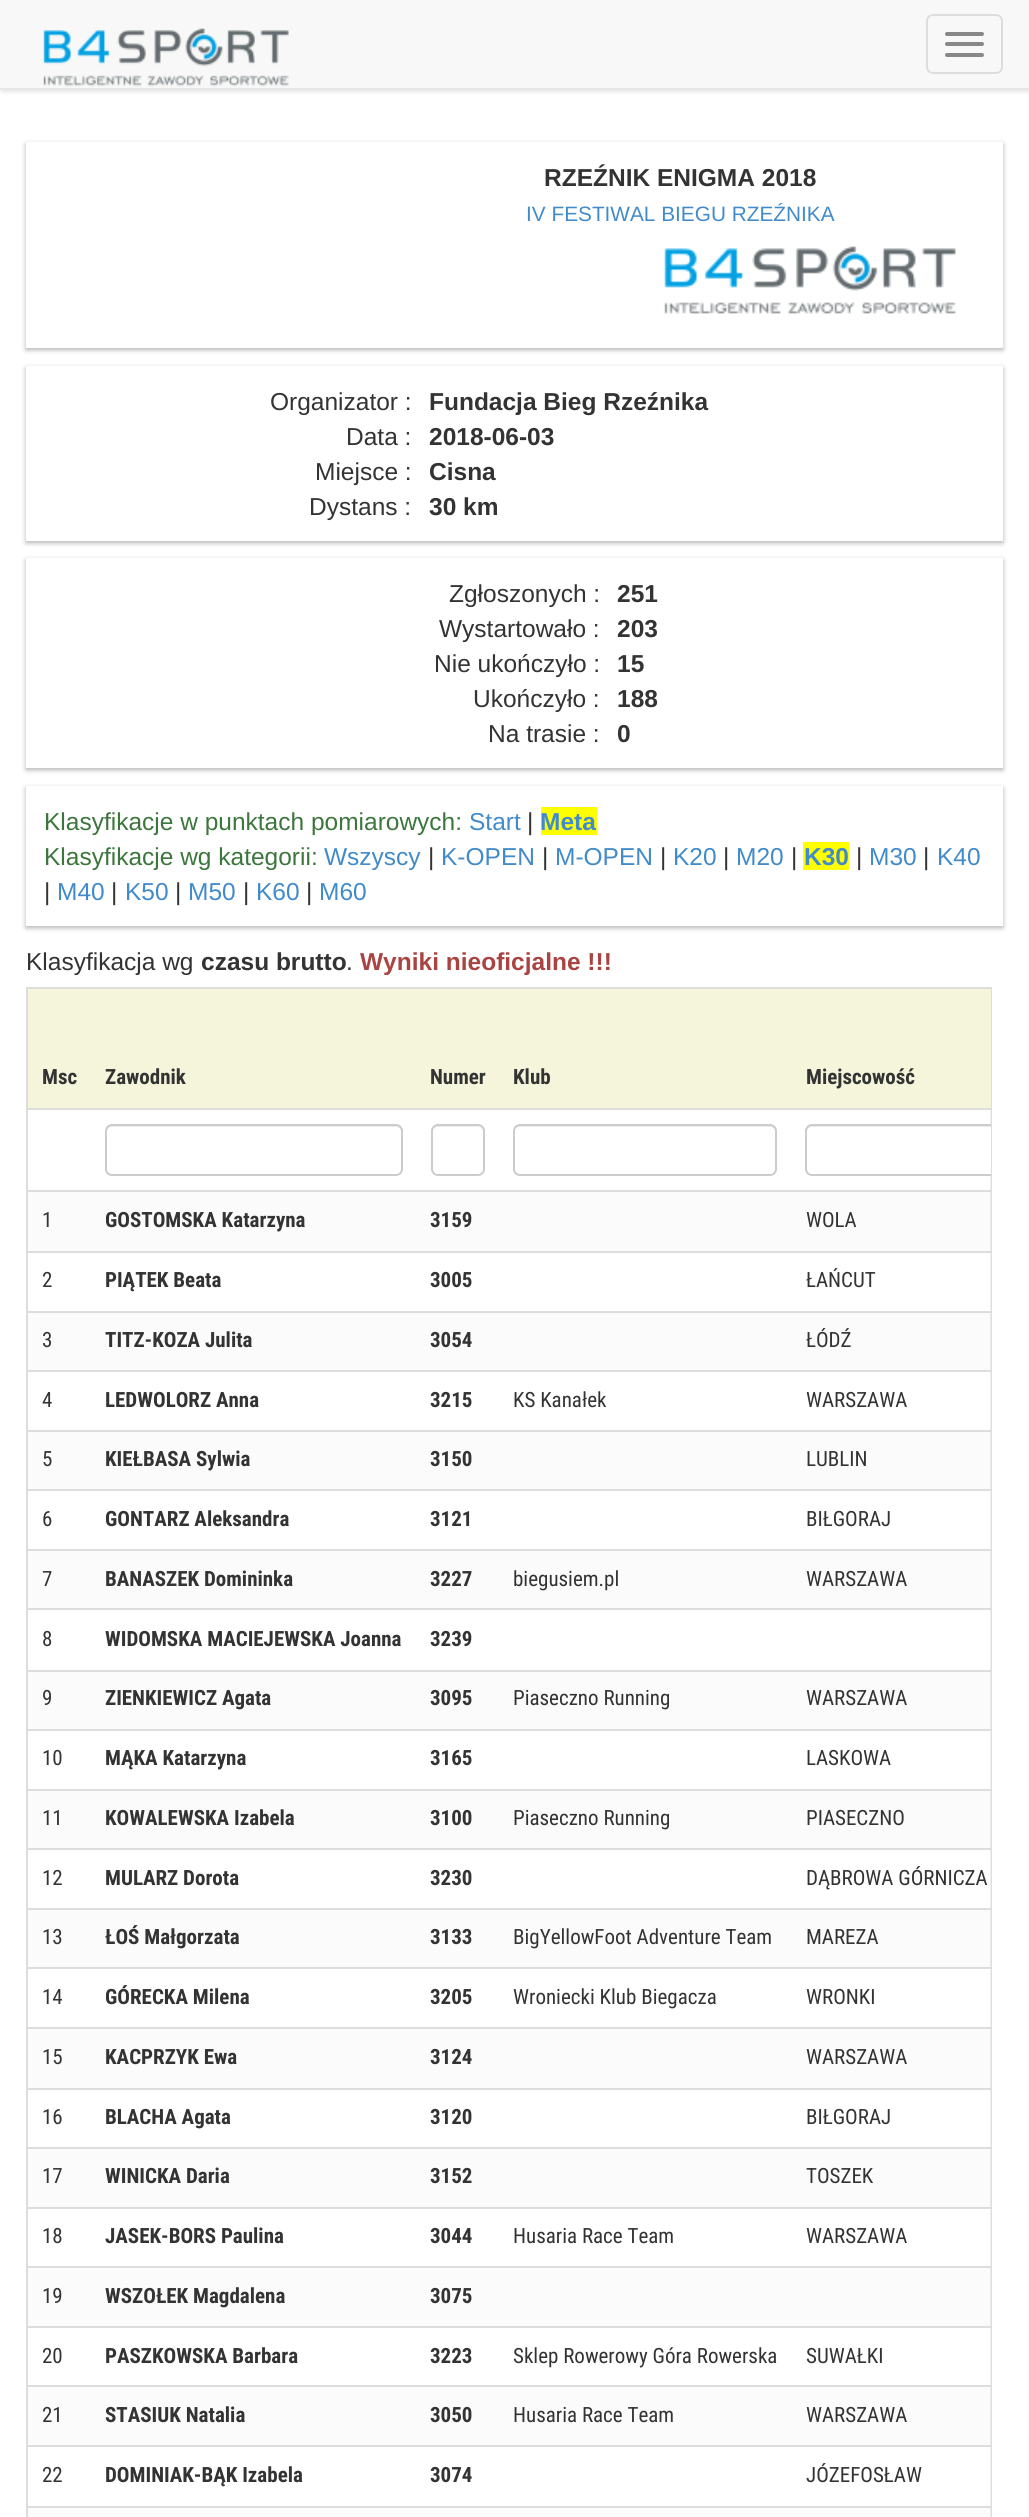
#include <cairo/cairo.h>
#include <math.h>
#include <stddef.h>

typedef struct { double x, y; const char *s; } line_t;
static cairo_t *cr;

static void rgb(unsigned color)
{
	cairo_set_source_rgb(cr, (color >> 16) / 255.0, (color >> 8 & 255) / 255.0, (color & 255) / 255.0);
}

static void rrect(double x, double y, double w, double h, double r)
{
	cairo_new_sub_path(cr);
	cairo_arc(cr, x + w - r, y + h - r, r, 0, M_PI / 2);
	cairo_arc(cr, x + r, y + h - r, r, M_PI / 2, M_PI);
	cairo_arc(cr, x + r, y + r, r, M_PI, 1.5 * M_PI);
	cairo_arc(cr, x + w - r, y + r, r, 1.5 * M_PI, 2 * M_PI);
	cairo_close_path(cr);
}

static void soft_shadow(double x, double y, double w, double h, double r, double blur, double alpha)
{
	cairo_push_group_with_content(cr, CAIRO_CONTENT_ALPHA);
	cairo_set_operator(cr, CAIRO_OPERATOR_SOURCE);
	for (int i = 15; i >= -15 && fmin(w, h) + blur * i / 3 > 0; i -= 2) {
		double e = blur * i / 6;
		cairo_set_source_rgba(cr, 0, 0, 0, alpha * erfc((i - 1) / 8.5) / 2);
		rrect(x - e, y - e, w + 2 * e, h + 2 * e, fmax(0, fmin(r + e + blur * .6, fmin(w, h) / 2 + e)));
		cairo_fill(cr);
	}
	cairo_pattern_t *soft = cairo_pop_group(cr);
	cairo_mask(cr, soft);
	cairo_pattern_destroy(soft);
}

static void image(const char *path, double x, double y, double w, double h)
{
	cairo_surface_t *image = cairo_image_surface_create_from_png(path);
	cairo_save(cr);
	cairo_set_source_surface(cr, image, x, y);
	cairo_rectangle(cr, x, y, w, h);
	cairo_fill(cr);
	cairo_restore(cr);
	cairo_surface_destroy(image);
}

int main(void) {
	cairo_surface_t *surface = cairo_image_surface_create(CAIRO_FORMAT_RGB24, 1029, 2517);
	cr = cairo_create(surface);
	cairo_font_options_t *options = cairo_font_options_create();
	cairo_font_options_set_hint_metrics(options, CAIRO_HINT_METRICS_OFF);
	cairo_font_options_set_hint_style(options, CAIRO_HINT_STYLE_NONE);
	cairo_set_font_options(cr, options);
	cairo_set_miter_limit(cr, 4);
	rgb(0xffffff);
	cairo_paint(cr);
	rgb(0xdddddd);
	soft_shadow(2, 2, 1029, 89, 0, 2.5, 1);
	rgb(0xf8f8f8);
	cairo_rectangle(cr, 0, 0, 1029, 88);
	cairo_fill(cr);
	rgb(0xe7e7e7);
	cairo_rectangle(cr, 0, 88, 1029, 2);
	cairo_fill(cr);
	image("img/1.png", 43, 28, 246, 59);
	rrect(927, 15, 75, 58, 6);
	rgb(0xdddddd);
	cairo_stroke(cr);
	rgb(0x888888);
	rrect(945, 32, 39, 4, 2);
	cairo_fill(cr);
	rrect(945, 42, 39, 4, 2);
	cairo_fill(cr);
	rrect(945, 53, 39, 4, 2);
	cairo_fill(cr);
	cairo_save(cr);
	cairo_set_fill_rule(cr, CAIRO_FILL_RULE_EVEN_ODD);
	cairo_new_path(cr);
	cairo_move_to(cr, 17, 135);
	cairo_line_to(cr, 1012, 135);
	cairo_line_to(cr, 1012, 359);
	cairo_line_to(cr, 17, 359);
	cairo_close_path(cr);
	cairo_move_to(cr, 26, 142);
	cairo_line_to(cr, 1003, 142);
	cairo_line_to(cr, 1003, 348);
	cairo_line_to(cr, 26, 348);
	cairo_close_path(cr);
	cairo_clip(cr);
	rgb(0x000000);
	soft_shadow(26, 144, 977, 206, 0, 2.5, 0.3);
	cairo_restore(cr);
	cairo_set_source_rgba(cr, 1, 1, 1, 0.6);
	cairo_rectangle(cr, 26, 143, 977, 205);
	cairo_fill(cr);
	image("img/2.png", 664, 246, 292, 68);
	cairo_save(cr);
	cairo_set_fill_rule(cr, CAIRO_FILL_RULE_EVEN_ODD);
	cairo_new_path(cr);
	cairo_move_to(cr, 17, 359);
	cairo_line_to(cr, 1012, 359);
	cairo_line_to(cr, 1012, 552);
	cairo_line_to(cr, 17, 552);
	cairo_close_path(cr);
	cairo_move_to(cr, 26, 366);
	cairo_line_to(cr, 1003, 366);
	cairo_line_to(cr, 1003, 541);
	cairo_line_to(cr, 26, 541);
	cairo_close_path(cr);
	cairo_clip(cr);
	rgb(0x000000);
	soft_shadow(26, 368, 977, 175, 0, 2.5, 0.3);
	cairo_restore(cr);
	cairo_rectangle(cr, 26, 367, 977, 174);
	cairo_fill(cr);
	cairo_save(cr);
	cairo_set_fill_rule(cr, CAIRO_FILL_RULE_EVEN_ODD);
	cairo_new_path(cr);
	cairo_move_to(cr, 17, 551);
	cairo_line_to(cr, 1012, 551);
	cairo_line_to(cr, 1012, 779);
	cairo_line_to(cr, 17, 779);
	cairo_close_path(cr);
	cairo_move_to(cr, 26, 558);
	cairo_line_to(cr, 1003, 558);
	cairo_line_to(cr, 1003, 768);
	cairo_line_to(cr, 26, 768);
	cairo_close_path(cr);
	cairo_clip(cr);
	rgb(0x000000);
	soft_shadow(26, 560, 977, 210, 0, 2.5, 0.3);
	cairo_restore(cr);
	cairo_rectangle(cr, 26, 558, 977, 210);
	cairo_fill(cr);
	cairo_save(cr);
	cairo_set_fill_rule(cr, CAIRO_FILL_RULE_EVEN_ODD);
	cairo_new_path(cr);
	cairo_move_to(cr, 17, 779);
	cairo_line_to(cr, 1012, 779);
	cairo_line_to(cr, 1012, 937);
	cairo_line_to(cr, 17, 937);
	cairo_close_path(cr);
	cairo_move_to(cr, 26, 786);
	cairo_line_to(cr, 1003, 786);
	cairo_line_to(cr, 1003, 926);
	cairo_line_to(cr, 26, 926);
	cairo_close_path(cr);
	cairo_clip(cr);
	rgb(0x000000);
	soft_shadow(26, 788, 977, 140, 0, 2.5, 0.3);
	cairo_restore(cr);
	cairo_rectangle(cr, 26, 787, 977, 139);
	cairo_fill(cr);
	rgb(0xffff00);
	cairo_rectangle(cr, 541, 807, 56, 28);
	cairo_fill(cr);
	cairo_rectangle(cr, 803, 842, 46, 28);
	cairo_fill(cr);
	cairo_rectangle(cr, 27, 988, 964, 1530);
	rgb(0xdddddd);
	cairo_stroke(cr);
	rgb(0xf5f5dc);
	cairo_rectangle(cr, 28, 989, 963, 119);
	cairo_fill(cr);
	rgb(0xdddddd);
	cairo_rectangle(cr, 28, 1108, 963, 2);
	cairo_fill(cr);
	rgb(0xececec);
	cairo_new_path(cr);
	cairo_move_to(cr, 112, 1127);
	cairo_line_to(cr, 396, 1127);
	cairo_curve_to(cr, 398, 1127, 401, 1129, 401, 1132);
	cairo_curve_to(cr, 401, 1129, 400, 1125, 396, 1125);
	cairo_line_to(cr, 111, 1125);
	cairo_curve_to(cr, 107, 1126, 107, 1129, 107, 1132);
	cairo_curve_to(cr, 107, 1129, 109, 1127, 112, 1127);
	cairo_close_path(cr);
	cairo_fill(cr);
	rrect(106, 1125, 296, 50, 6);
	rgb(0xcccccc);
	cairo_stroke(cr);
	rgb(0xececec);
	cairo_new_path(cr);
	cairo_move_to(cr, 438, 1127);
	cairo_line_to(cr, 478, 1127);
	cairo_curve_to(cr, 481, 1127, 483, 1129, 483, 1132);
	cairo_curve_to(cr, 483, 1124, 478, 1125, 471, 1125);
	cairo_line_to(cr, 444, 1125);
	cairo_curve_to(cr, 437, 1125, 432, 1124, 432, 1132);
	cairo_curve_to(cr, 432, 1129, 435, 1127, 438, 1127);
	cairo_close_path(cr);
	cairo_fill(cr);
	rrect(432, 1125, 52, 50, 6);
	rgb(0xcccccc);
	cairo_stroke(cr);
	rgb(0xececec);
	cairo_new_path(cr);
	cairo_move_to(cr, 520, 1127);
	cairo_line_to(cr, 770, 1127);
	cairo_curve_to(cr, 773, 1127, 775, 1129, 775, 1132);
	cairo_line_to(cr, 775, 1130);
	cairo_curve_to(cr, 775, 1127, 773, 1125, 770, 1125);
	cairo_line_to(cr, 520, 1125);
	cairo_curve_to(cr, 518, 1125, 515, 1127, 515, 1129);
	cairo_curve_to(cr, 516, 1128, 518, 1127, 520, 1127);
	cairo_close_path(cr);
	cairo_fill(cr);
	rrect(514, 1125, 262, 50, 6);
	rgb(0xcccccc);
	cairo_stroke(cr);
	cairo_set_source_rgba(cr, 1, 1, 1, 0.6);
	cairo_rectangle(cr, 990, 1110, 1, 80);
	cairo_fill(cr);
	rgb(0xffffff);
	cairo_new_path(cr);
	cairo_move_to(cr, 812, 1124);
	cairo_line_to(cr, 991, 1124);
	cairo_line_to(cr, 991, 1176);
	cairo_line_to(cr, 812, 1176);
	cairo_curve_to(cr, 808, 1176, 805, 1173, 805, 1169);
	cairo_line_to(cr, 805, 1131);
	cairo_curve_to(cr, 805, 1127, 808, 1124, 812, 1124);
	cairo_close_path(cr);
	cairo_fill(cr);
	cairo_save(cr);
	cairo_rectangle(cr, 28, 989, 963, 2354);
	cairo_clip(cr);
	rgb(0xececec);
	cairo_new_path(cr);
	cairo_move_to(cr, 812, 1127);
	cairo_line_to(cr, 990, 1127);
	cairo_curve_to(cr, 993, 1127, 996, 1129, 996, 1132);
	cairo_line_to(cr, 996, 1130);
	cairo_curve_to(cr, 996, 1127, 994, 1125, 991, 1125);
	cairo_line_to(cr, 812, 1125);
	cairo_curve_to(cr, 809, 1125, 807, 1127, 807, 1130);
	cairo_line_to(cr, 807, 1132);
	cairo_curve_to(cr, 807, 1129, 809, 1127, 812, 1127);
	cairo_close_path(cr);
	cairo_fill(cr);
	rrect(806, 1125, 191, 50, 6);
	rgb(0xcccccc);
	cairo_stroke(cr);
	cairo_restore(cr);
	rgb(0xfbfbfb);
	cairo_rectangle(cr, 28, 1192, 763, 59);
	cairo_fill(cr);
	cairo_set_source_rgba(cr, 0.976, 0.976, 0.976, 0.6);
	cairo_rectangle(cr, 791, 1192, 200, 59);
	cairo_fill(cr);
	rgb(0xdddddd);
	cairo_rectangle(cr, 28, 1190, 963, 2);
	cairo_fill(cr);
	cairo_set_source_rgba(cr, 1, 1, 1, 0.6);
	cairo_rectangle(cr, 990, 1253, 1, 58);
	cairo_fill(cr);
	rgb(0xdddddd);
	cairo_rectangle(cr, 28, 1251, 963, 2);
	cairo_fill(cr);
	rgb(0xfbfbfb);
	cairo_rectangle(cr, 28, 1313, 763, 57);
	cairo_fill(cr);
	cairo_set_source_rgba(cr, 0.976, 0.976, 0.976, 0.6);
	cairo_rectangle(cr, 791, 1313, 200, 57);
	cairo_fill(cr);
	rgb(0xdddddd);
	cairo_rectangle(cr, 28, 1311, 963, 2);
	cairo_fill(cr);
	cairo_set_source_rgba(cr, 1, 1, 1, 0.6);
	cairo_rectangle(cr, 990, 1372, 1, 58);
	cairo_fill(cr);
	rgb(0xdddddd);
	cairo_rectangle(cr, 28, 1370, 963, 2);
	cairo_fill(cr);
	rgb(0xfbfbfb);
	cairo_rectangle(cr, 28, 1432, 763, 57);
	cairo_fill(cr);
	cairo_set_source_rgba(cr, 0.976, 0.976, 0.976, 0.6);
	cairo_rectangle(cr, 791, 1432, 200, 57);
	cairo_fill(cr);
	rgb(0xdddddd);
	cairo_rectangle(cr, 28, 1430, 963, 2);
	cairo_fill(cr);
	cairo_set_source_rgba(cr, 1, 1, 1, 0.6);
	cairo_rectangle(cr, 990, 1491, 1, 58);
	cairo_fill(cr);
	rgb(0xdddddd);
	cairo_rectangle(cr, 28, 1489, 963, 2);
	cairo_fill(cr);
	rgb(0xfbfbfb);
	cairo_rectangle(cr, 28, 1551, 763, 57);
	cairo_fill(cr);
	cairo_set_source_rgba(cr, 0.976, 0.976, 0.976, 0.6);
	cairo_rectangle(cr, 791, 1551, 200, 57);
	cairo_fill(cr);
	rgb(0xdddddd);
	cairo_rectangle(cr, 28, 1549, 963, 2);
	cairo_fill(cr);
	cairo_set_source_rgba(cr, 1, 1, 1, 0.6);
	cairo_rectangle(cr, 990, 1610, 1, 60);
	cairo_fill(cr);
	rgb(0xdddddd);
	cairo_rectangle(cr, 28, 1608, 963, 2);
	cairo_fill(cr);
	rgb(0xfbfbfb);
	cairo_rectangle(cr, 28, 1672, 763, 57);
	cairo_fill(cr);
	cairo_set_source_rgba(cr, 0.976, 0.976, 0.976, 0.6);
	cairo_rectangle(cr, 791, 1672, 200, 57);
	cairo_fill(cr);
	rgb(0xdddddd);
	cairo_rectangle(cr, 28, 1670, 963, 2);
	cairo_fill(cr);
	cairo_set_source_rgba(cr, 1, 1, 1, 0.6);
	cairo_rectangle(cr, 990, 1731, 1, 58);
	cairo_fill(cr);
	rgb(0xdddddd);
	cairo_rectangle(cr, 28, 1729, 963, 2);
	cairo_fill(cr);
	rgb(0xfbfbfb);
	cairo_rectangle(cr, 28, 1791, 763, 57);
	cairo_fill(cr);
	cairo_set_source_rgba(cr, 0.976, 0.976, 0.976, 0.6);
	cairo_rectangle(cr, 791, 1791, 200, 57);
	cairo_fill(cr);
	rgb(0xdddddd);
	cairo_rectangle(cr, 28, 1789, 963, 2);
	cairo_fill(cr);
	cairo_set_source_rgba(cr, 1, 1, 1, 0.6);
	cairo_rectangle(cr, 990, 1850, 1, 58);
	cairo_fill(cr);
	rgb(0xdddddd);
	cairo_rectangle(cr, 28, 1848, 963, 2);
	cairo_fill(cr);
	rgb(0xfbfbfb);
	cairo_rectangle(cr, 28, 1910, 763, 57);
	cairo_fill(cr);
	cairo_set_source_rgba(cr, 0.976, 0.976, 0.976, 0.6);
	cairo_rectangle(cr, 791, 1910, 200, 57);
	cairo_fill(cr);
	rgb(0xdddddd);
	cairo_rectangle(cr, 28, 1908, 963, 2);
	cairo_fill(cr);
	cairo_set_source_rgba(cr, 1, 1, 1, 0.6);
	cairo_rectangle(cr, 990, 1969, 1, 58);
	cairo_fill(cr);
	rgb(0xdddddd);
	cairo_rectangle(cr, 28, 1967, 963, 2);
	cairo_fill(cr);
	rgb(0xfbfbfb);
	cairo_rectangle(cr, 28, 2029, 763, 59);
	cairo_fill(cr);
	cairo_set_source_rgba(cr, 0.976, 0.976, 0.976, 0.6);
	cairo_rectangle(cr, 791, 2029, 200, 59);
	cairo_fill(cr);
	rgb(0xdddddd);
	cairo_rectangle(cr, 28, 2027, 963, 2);
	cairo_fill(cr);
	cairo_set_source_rgba(cr, 1, 1, 1, 0.6);
	cairo_rectangle(cr, 990, 2090, 1, 57);
	cairo_fill(cr);
	rgb(0xdddddd);
	cairo_rectangle(cr, 28, 2088, 963, 2);
	cairo_fill(cr);
	rgb(0xfbfbfb);
	cairo_rectangle(cr, 28, 2149, 763, 58);
	cairo_fill(cr);
	cairo_set_source_rgba(cr, 0.976, 0.976, 0.976, 0.6);
	cairo_rectangle(cr, 791, 2149, 200, 58);
	cairo_fill(cr);
	rgb(0xdddddd);
	cairo_rectangle(cr, 28, 2147, 963, 2);
	cairo_fill(cr);
	cairo_set_source_rgba(cr, 1, 1, 1, 0.6);
	cairo_rectangle(cr, 990, 2209, 1, 57);
	cairo_fill(cr);
	rgb(0xdddddd);
	cairo_rectangle(cr, 28, 2207, 963, 2);
	cairo_fill(cr);
	cairo_set_source_rgba(cr, 0.976, 0.976, 0.976, 0.6);
	cairo_rectangle(cr, 791, 2268, 200, 58);
	cairo_fill(cr);
	rgb(0xdddddd);
	cairo_rectangle(cr, 28, 2266, 963, 2);
	cairo_fill(cr);
	rgb(0xfbfbfb);
	cairo_rectangle(cr, 28, 2268, 763, 58);
	cairo_fill(cr);
	cairo_set_source_rgba(cr, 1, 1, 1, 0.6);
	cairo_rectangle(cr, 990, 2328, 1, 57);
	cairo_fill(cr);
	rgb(0xdddddd);
	cairo_rectangle(cr, 28, 2326, 963, 2);
	cairo_fill(cr);
	rgb(0xfbfbfb);
	cairo_rectangle(cr, 28, 2387, 763, 58);
	cairo_fill(cr);
	cairo_set_source_rgba(cr, 0.976, 0.976, 0.976, 0.6);
	cairo_rectangle(cr, 791, 2387, 200, 58);
	cairo_fill(cr);
	rgb(0xdddddd);
	cairo_rectangle(cr, 28, 2385, 963, 2);
	cairo_fill(cr);
	cairo_set_source_rgba(cr, 1, 1, 1, 0.6);
	cairo_rectangle(cr, 990, 2447, 1, 59);
	cairo_fill(cr);
	rgb(0xdddddd);
	cairo_rectangle(cr, 28, 2445, 963, 2);
	cairo_fill(cr);
	cairo_set_source_rgba(cr, 0.976, 0.976, 0.976, 0.6);
	cairo_rectangle(cr, 791, 2508, 200, 9);
	cairo_fill(cr);
	rgb(0xdddddd);
	cairo_rectangle(cr, 28, 2506, 963, 2);
	cairo_fill(cr);
	rgb(0xfbfbfb);
	cairo_rectangle(cr, 28, 2508, 763, 9);
	cairo_fill(cr);
	cairo_select_font_face(cr, "Liberation Sans", CAIRO_FONT_SLANT_NORMAL, CAIRO_FONT_WEIGHT_BOLD);
	cairo_set_font_size(cr, 24.5);
	rgb(0x333333);
	cairo_move_to(cr, 544, 186);
	cairo_show_text(cr, "RZEŹNIK ENIGMA 2018");
	cairo_select_font_face(cr, "Liberation Sans", CAIRO_FONT_SLANT_NORMAL, CAIRO_FONT_WEIGHT_NORMAL);
	cairo_set_font_size(cr, 20.8);
	rgb(0x428bca);
	cairo_move_to(cr, 526, 221);
	cairo_show_text(cr, "IV FESTIWAL BIEGU RZEŹNIKA");
	cairo_set_font_size(cr, 24.5);
	rgb(0x333333);
	cairo_move_to(cr, 270, 410);
	cairo_show_text(cr, "Organizator :");
	cairo_select_font_face(cr, "Liberation Sans", CAIRO_FONT_SLANT_NORMAL, CAIRO_FONT_WEIGHT_BOLD);
	cairo_move_to(cr, 429, 410);
	cairo_show_text(cr, "Fundacja Bieg Rzeźnika");
	cairo_select_font_face(cr, "Liberation Sans", CAIRO_FONT_SLANT_NORMAL, CAIRO_FONT_WEIGHT_NORMAL);
	cairo_move_to(cr, 346, 445);
	cairo_show_text(cr, "Data :");
	cairo_select_font_face(cr, "Liberation Sans", CAIRO_FONT_SLANT_NORMAL, CAIRO_FONT_WEIGHT_BOLD);
	cairo_move_to(cr, 429, 445);
	cairo_show_text(cr, "2018-06-03");
	cairo_select_font_face(cr, "Liberation Sans", CAIRO_FONT_SLANT_NORMAL, CAIRO_FONT_WEIGHT_NORMAL);
	cairo_move_to(cr, 315, 480);
	cairo_show_text(cr, "Miejsce :");
	cairo_select_font_face(cr, "Liberation Sans", CAIRO_FONT_SLANT_NORMAL, CAIRO_FONT_WEIGHT_BOLD);
	cairo_move_to(cr, 429, 480);
	cairo_show_text(cr, "Cisna");
	cairo_select_font_face(cr, "Liberation Sans", CAIRO_FONT_SLANT_NORMAL, CAIRO_FONT_WEIGHT_NORMAL);
	cairo_move_to(cr, 309, 515);
	cairo_show_text(cr, "Dystans :");
	cairo_select_font_face(cr, "Liberation Sans", CAIRO_FONT_SLANT_NORMAL, CAIRO_FONT_WEIGHT_BOLD);
	cairo_move_to(cr, 429, 515);
	cairo_show_text(cr, "30 km");
	cairo_select_font_face(cr, "Liberation Sans", CAIRO_FONT_SLANT_NORMAL, CAIRO_FONT_WEIGHT_NORMAL);
	cairo_move_to(cr, 449, 602);
	cairo_show_text(cr, "Zgłoszonych :");
	cairo_select_font_face(cr, "Liberation Sans", CAIRO_FONT_SLANT_NORMAL, CAIRO_FONT_WEIGHT_BOLD);
	cairo_move_to(cr, 617, 602);
	cairo_show_text(cr, "251");
	cairo_select_font_face(cr, "Liberation Sans", CAIRO_FONT_SLANT_NORMAL, CAIRO_FONT_WEIGHT_NORMAL);
	cairo_move_to(cr, 439, 637);
	cairo_show_text(cr, "Wystartowało :");
	cairo_select_font_face(cr, "Liberation Sans", CAIRO_FONT_SLANT_NORMAL, CAIRO_FONT_WEIGHT_BOLD);
	cairo_move_to(cr, 617, 637);
	cairo_show_text(cr, "203");
	cairo_select_font_face(cr, "Liberation Sans", CAIRO_FONT_SLANT_NORMAL, CAIRO_FONT_WEIGHT_NORMAL);
	cairo_move_to(cr, 434, 672);
	cairo_show_text(cr, "Nie ukończyło :");
	cairo_select_font_face(cr, "Liberation Sans", CAIRO_FONT_SLANT_NORMAL, CAIRO_FONT_WEIGHT_BOLD);
	cairo_move_to(cr, 617, 672);
	cairo_show_text(cr, "15");
	cairo_select_font_face(cr, "Liberation Sans", CAIRO_FONT_SLANT_NORMAL, CAIRO_FONT_WEIGHT_NORMAL);
	cairo_move_to(cr, 473, 707);
	cairo_show_text(cr, "Ukończyło :");
	cairo_select_font_face(cr, "Liberation Sans", CAIRO_FONT_SLANT_NORMAL, CAIRO_FONT_WEIGHT_BOLD);
	cairo_move_to(cr, 617, 707);
	cairo_show_text(cr, "188");
	cairo_select_font_face(cr, "Liberation Sans", CAIRO_FONT_SLANT_NORMAL, CAIRO_FONT_WEIGHT_NORMAL);
	cairo_move_to(cr, 488, 742);
	cairo_show_text(cr, "Na trasie :");
	cairo_select_font_face(cr, "Liberation Sans", CAIRO_FONT_SLANT_NORMAL, CAIRO_FONT_WEIGHT_BOLD);
	cairo_move_to(cr, 617, 742);
	cairo_show_text(cr, "0");
	cairo_select_font_face(cr, "Liberation Sans", CAIRO_FONT_SLANT_NORMAL, CAIRO_FONT_WEIGHT_NORMAL);
	rgb(0x3c763d);
	cairo_move_to(cr, 44, 830);
	cairo_show_text(cr, "Klasyfikacje w punktach pomiarowych:");
	rgb(0x428bca);
	cairo_move_to(cr, 469, 830);
	cairo_show_text(cr, "Start");
	rgb(0x333333);
	cairo_move_to(cr, 527, 830);
	cairo_show_text(cr, "|");
	cairo_select_font_face(cr, "Liberation Sans", CAIRO_FONT_SLANT_NORMAL, CAIRO_FONT_WEIGHT_BOLD);
	rgb(0x428bca);
	cairo_move_to(cr, 540, 830);
	cairo_show_text(cr, "Meta");
	cairo_select_font_face(cr, "Liberation Sans", CAIRO_FONT_SLANT_NORMAL, CAIRO_FONT_WEIGHT_NORMAL);
	rgb(0x3c763d);
	cairo_move_to(cr, 44, 865);
	cairo_show_text(cr, "Klasyfikacje wg kategorii:");
	rgb(0x428bca);
	cairo_move_to(cr, 324, 865);
	cairo_show_text(cr, "Wszyscy");
	rgb(0x333333);
	cairo_move_to(cr, 428, 865);
	cairo_show_text(cr, "|");
	rgb(0x428bca);
	cairo_move_to(cr, 441, 865);
	cairo_show_text(cr, "K-OPEN");
	rgb(0x333333);
	cairo_move_to(cr, 542, 865);
	cairo_show_text(cr, "|");
	rgb(0x428bca);
	cairo_move_to(cr, 555, 865);
	cairo_show_text(cr, "M-OPEN");
	rgb(0x333333);
	cairo_move_to(cr, 660, 865);
	cairo_show_text(cr, "|");
	rgb(0x428bca);
	cairo_move_to(cr, 673, 865);
	cairo_show_text(cr, "K20");
	rgb(0x333333);
	cairo_move_to(cr, 723, 865);
	cairo_show_text(cr, "|");
	rgb(0x428bca);
	cairo_move_to(cr, 736, 865);
	cairo_show_text(cr, "M20");
	rgb(0x333333);
	cairo_move_to(cr, 791, 865);
	cairo_show_text(cr, "|");
	cairo_select_font_face(cr, "Liberation Sans", CAIRO_FONT_SLANT_NORMAL, CAIRO_FONT_WEIGHT_BOLD);
	rgb(0x428bca);
	cairo_move_to(cr, 804, 865);
	cairo_show_text(cr, "K30");
	cairo_select_font_face(cr, "Liberation Sans", CAIRO_FONT_SLANT_NORMAL, CAIRO_FONT_WEIGHT_NORMAL);
	rgb(0x333333);
	cairo_move_to(cr, 856, 865);
	cairo_show_text(cr, "|");
	rgb(0x428bca);
	cairo_move_to(cr, 869, 865);
	cairo_show_text(cr, "M30");
	rgb(0x333333);
	cairo_move_to(cr, 923, 865);
	cairo_show_text(cr, "|");
	rgb(0x428bca);
	cairo_move_to(cr, 937, 865);
	cairo_show_text(cr, "K40");
	rgb(0x333333);
	cairo_move_to(cr, 44, 900);
	cairo_show_text(cr, "|");
	rgb(0x428bca);
	cairo_move_to(cr, 57, 900);
	cairo_show_text(cr, "M40");
	rgb(0x333333);
	cairo_move_to(cr, 111, 900);
	cairo_show_text(cr, "|");
	rgb(0x428bca);
	cairo_move_to(cr, 125, 900);
	cairo_show_text(cr, "K50");
	rgb(0x333333);
	cairo_move_to(cr, 175, 900);
	cairo_show_text(cr, "|");
	rgb(0x428bca);
	cairo_move_to(cr, 188, 900);
	cairo_show_text(cr, "M50");
	rgb(0x333333);
	cairo_move_to(cr, 243, 900);
	cairo_show_text(cr, "|");
	rgb(0x428bca);
	cairo_move_to(cr, 256, 900);
	cairo_show_text(cr, "K60");
	rgb(0x333333);
	cairo_move_to(cr, 306, 900);
	cairo_show_text(cr, "|");
	rgb(0x428bca);
	cairo_move_to(cr, 319, 900);
	cairo_show_text(cr, "M60");
	rgb(0x333333);
	cairo_move_to(cr, 26, 970);
	cairo_show_text(cr, "Klasyfikacja wg");
	cairo_select_font_face(cr, "Liberation Sans", CAIRO_FONT_SLANT_NORMAL, CAIRO_FONT_WEIGHT_BOLD);
	cairo_move_to(cr, 201, 970);
	cairo_show_text(cr, "czasu brutto");
	cairo_select_font_face(cr, "Liberation Sans", CAIRO_FONT_SLANT_NORMAL, CAIRO_FONT_WEIGHT_NORMAL);
	cairo_move_to(cr, 346, 970);
	cairo_show_text(cr, ".");
	cairo_select_font_face(cr, "Liberation Sans", CAIRO_FONT_SLANT_NORMAL, CAIRO_FONT_WEIGHT_BOLD);
	rgb(0xa94442);
	cairo_move_to(cr, 360, 970);
	cairo_show_text(cr, "Wyniki nieoficjalne !!!");
	cairo_select_font_face(cr, "Roboto Condensed", CAIRO_FONT_SLANT_NORMAL, CAIRO_FONT_WEIGHT_BOLD);
	cairo_set_font_size(cr, 21);
	rgb(0x333333);
	{
		static const line_t items[] = {
			{42, 1084, "Msc"},
			{105, 1084, "Zawodnik"},
			{430, 1084, "Numer"},
			{513, 1084, "Klub"},
			{806, 1084, "Miejscowość"},
		};
		for (size_t i = 0; i < sizeof items / sizeof *items; i++) {
			cairo_move_to(cr, items[i].x, items[i].y);
			cairo_show_text(cr, items[i].s);
		}
	}
	cairo_select_font_face(cr, "Roboto Condensed", CAIRO_FONT_SLANT_NORMAL, CAIRO_FONT_WEIGHT_NORMAL);
	cairo_move_to(cr, 42, 1227);
	cairo_show_text(cr, "1");
	cairo_select_font_face(cr, "Roboto Condensed", CAIRO_FONT_SLANT_NORMAL, CAIRO_FONT_WEIGHT_BOLD);
	cairo_move_to(cr, 105, 1227);
	cairo_show_text(cr, "GOSTOMSKA Katarzyna");
	cairo_move_to(cr, 430, 1227);
	cairo_show_text(cr, "3159");
	cairo_select_font_face(cr, "Roboto Condensed", CAIRO_FONT_SLANT_NORMAL, CAIRO_FONT_WEIGHT_NORMAL);
	cairo_move_to(cr, 806, 1227);
	cairo_show_text(cr, "WOLA");
	cairo_move_to(cr, 42, 1287);
	cairo_show_text(cr, "2");
	cairo_select_font_face(cr, "Roboto Condensed", CAIRO_FONT_SLANT_NORMAL, CAIRO_FONT_WEIGHT_BOLD);
	cairo_move_to(cr, 105, 1287);
	cairo_show_text(cr, "PIĄTEK Beata");
	cairo_move_to(cr, 430, 1287);
	cairo_show_text(cr, "3005");
	cairo_select_font_face(cr, "Roboto Condensed", CAIRO_FONT_SLANT_NORMAL, CAIRO_FONT_WEIGHT_NORMAL);
	cairo_move_to(cr, 806, 1287);
	cairo_show_text(cr, "ŁAŃCUT");
	cairo_move_to(cr, 42, 1347);
	cairo_show_text(cr, "3");
	cairo_select_font_face(cr, "Roboto Condensed", CAIRO_FONT_SLANT_NORMAL, CAIRO_FONT_WEIGHT_BOLD);
	cairo_move_to(cr, 105, 1347);
	cairo_show_text(cr, "TITZ-KOZA Julita");
	cairo_move_to(cr, 430, 1347);
	cairo_show_text(cr, "3054");
	cairo_select_font_face(cr, "Roboto Condensed", CAIRO_FONT_SLANT_NORMAL, CAIRO_FONT_WEIGHT_NORMAL);
	cairo_move_to(cr, 806, 1347);
	cairo_show_text(cr, "ŁÓDŹ");
	cairo_move_to(cr, 42, 1407);
	cairo_show_text(cr, "4");
	cairo_select_font_face(cr, "Roboto Condensed", CAIRO_FONT_SLANT_NORMAL, CAIRO_FONT_WEIGHT_BOLD);
	cairo_move_to(cr, 105, 1407);
	cairo_show_text(cr, "LEDWOLORZ Anna");
	cairo_move_to(cr, 430, 1407);
	cairo_show_text(cr, "3215");
	cairo_select_font_face(cr, "Roboto Condensed", CAIRO_FONT_SLANT_NORMAL, CAIRO_FONT_WEIGHT_NORMAL);
	{
		static const line_t items[] = {
			{513, 1407, "KS Kanałek"},
			{806, 1407, "WARSZAWA"},
			{42, 1466, "5"},
		};
		for (size_t i = 0; i < sizeof items / sizeof *items; i++) {
			cairo_move_to(cr, items[i].x, items[i].y);
			cairo_show_text(cr, items[i].s);
		}
	}
	cairo_select_font_face(cr, "Roboto Condensed", CAIRO_FONT_SLANT_NORMAL, CAIRO_FONT_WEIGHT_BOLD);
	cairo_move_to(cr, 105, 1466);
	cairo_show_text(cr, "KIEŁBASA Sylwia");
	cairo_move_to(cr, 430, 1466);
	cairo_show_text(cr, "3150");
	cairo_select_font_face(cr, "Roboto Condensed", CAIRO_FONT_SLANT_NORMAL, CAIRO_FONT_WEIGHT_NORMAL);
	cairo_move_to(cr, 806, 1466);
	cairo_show_text(cr, "LUBLIN");
	cairo_move_to(cr, 42, 1526);
	cairo_show_text(cr, "6");
	cairo_select_font_face(cr, "Roboto Condensed", CAIRO_FONT_SLANT_NORMAL, CAIRO_FONT_WEIGHT_BOLD);
	cairo_move_to(cr, 105, 1526);
	cairo_show_text(cr, "GONTARZ Aleksandra");
	cairo_move_to(cr, 430, 1526);
	cairo_show_text(cr, "3121");
	cairo_select_font_face(cr, "Roboto Condensed", CAIRO_FONT_SLANT_NORMAL, CAIRO_FONT_WEIGHT_NORMAL);
	cairo_move_to(cr, 806, 1526);
	cairo_show_text(cr, "BIŁGORAJ");
	cairo_move_to(cr, 42, 1586);
	cairo_show_text(cr, "7");
	cairo_select_font_face(cr, "Roboto Condensed", CAIRO_FONT_SLANT_NORMAL, CAIRO_FONT_WEIGHT_BOLD);
	cairo_move_to(cr, 105, 1586);
	cairo_show_text(cr, "BANASZEK Domininka");
	cairo_move_to(cr, 430, 1586);
	cairo_show_text(cr, "3227");
	cairo_select_font_face(cr, "Roboto Condensed", CAIRO_FONT_SLANT_NORMAL, CAIRO_FONT_WEIGHT_NORMAL);
	{
		static const line_t items[] = {
			{513, 1586, "biegusiem.pl"},
			{806, 1586, "WARSZAWA"},
			{42, 1646, "8"},
		};
		for (size_t i = 0; i < sizeof items / sizeof *items; i++) {
			cairo_move_to(cr, items[i].x, items[i].y);
			cairo_show_text(cr, items[i].s);
		}
	}
	cairo_select_font_face(cr, "Roboto Condensed", CAIRO_FONT_SLANT_NORMAL, CAIRO_FONT_WEIGHT_BOLD);
	cairo_move_to(cr, 105, 1646);
	cairo_show_text(cr, "WIDOMSKA MACIEJEWSKA Joanna");
	cairo_move_to(cr, 430, 1646);
	cairo_show_text(cr, "3239");
	cairo_select_font_face(cr, "Roboto Condensed", CAIRO_FONT_SLANT_NORMAL, CAIRO_FONT_WEIGHT_NORMAL);
	cairo_move_to(cr, 42, 1705);
	cairo_show_text(cr, "9");
	cairo_select_font_face(cr, "Roboto Condensed", CAIRO_FONT_SLANT_NORMAL, CAIRO_FONT_WEIGHT_BOLD);
	cairo_move_to(cr, 105, 1705);
	cairo_show_text(cr, "ZIENKIEWICZ Agata");
	cairo_move_to(cr, 430, 1705);
	cairo_show_text(cr, "3095");
	cairo_select_font_face(cr, "Roboto Condensed", CAIRO_FONT_SLANT_NORMAL, CAIRO_FONT_WEIGHT_NORMAL);
	{
		static const line_t items[] = {
			{513, 1705, "Piaseczno Running"},
			{806, 1705, "WARSZAWA"},
			{42, 1765, "10"},
		};
		for (size_t i = 0; i < sizeof items / sizeof *items; i++) {
			cairo_move_to(cr, items[i].x, items[i].y);
			cairo_show_text(cr, items[i].s);
		}
	}
	cairo_select_font_face(cr, "Roboto Condensed", CAIRO_FONT_SLANT_NORMAL, CAIRO_FONT_WEIGHT_BOLD);
	cairo_move_to(cr, 105, 1765);
	cairo_show_text(cr, "MĄKA Katarzyna");
	cairo_move_to(cr, 430, 1765);
	cairo_show_text(cr, "3165");
	cairo_select_font_face(cr, "Roboto Condensed", CAIRO_FONT_SLANT_NORMAL, CAIRO_FONT_WEIGHT_NORMAL);
	cairo_move_to(cr, 806, 1765);
	cairo_show_text(cr, "LASKOWA");
	cairo_move_to(cr, 42, 1825);
	cairo_show_text(cr, "11");
	cairo_select_font_face(cr, "Roboto Condensed", CAIRO_FONT_SLANT_NORMAL, CAIRO_FONT_WEIGHT_BOLD);
	cairo_move_to(cr, 105, 1825);
	cairo_show_text(cr, "KOWALEWSKA Izabela");
	cairo_move_to(cr, 430, 1825);
	cairo_show_text(cr, "3100");
	cairo_select_font_face(cr, "Roboto Condensed", CAIRO_FONT_SLANT_NORMAL, CAIRO_FONT_WEIGHT_NORMAL);
	{
		static const line_t items[] = {
			{513, 1825, "Piaseczno Running"},
			{806, 1825, "PIASECZNO"},
			{42, 1885, "12"},
		};
		for (size_t i = 0; i < sizeof items / sizeof *items; i++) {
			cairo_move_to(cr, items[i].x, items[i].y);
			cairo_show_text(cr, items[i].s);
		}
	}
	cairo_select_font_face(cr, "Roboto Condensed", CAIRO_FONT_SLANT_NORMAL, CAIRO_FONT_WEIGHT_BOLD);
	cairo_move_to(cr, 105, 1885);
	cairo_show_text(cr, "MULARZ Dorota");
	cairo_move_to(cr, 430, 1885);
	cairo_show_text(cr, "3230");
	cairo_select_font_face(cr, "Roboto Condensed", CAIRO_FONT_SLANT_NORMAL, CAIRO_FONT_WEIGHT_NORMAL);
	cairo_move_to(cr, 806, 1885);
	cairo_show_text(cr, "DĄBROWA GÓRNICZA");
	cairo_move_to(cr, 42, 1944);
	cairo_show_text(cr, "13");
	cairo_select_font_face(cr, "Roboto Condensed", CAIRO_FONT_SLANT_NORMAL, CAIRO_FONT_WEIGHT_BOLD);
	cairo_move_to(cr, 105, 1944);
	cairo_show_text(cr, "ŁOŚ Małgorzata");
	cairo_move_to(cr, 430, 1944);
	cairo_show_text(cr, "3133");
	cairo_select_font_face(cr, "Roboto Condensed", CAIRO_FONT_SLANT_NORMAL, CAIRO_FONT_WEIGHT_NORMAL);
	{
		static const line_t items[] = {
			{513, 1944, "BigYellowFoot Adventure Team"},
			{806, 1944, "MAREZA"},
			{42, 2004, "14"},
		};
		for (size_t i = 0; i < sizeof items / sizeof *items; i++) {
			cairo_move_to(cr, items[i].x, items[i].y);
			cairo_show_text(cr, items[i].s);
		}
	}
	cairo_select_font_face(cr, "Roboto Condensed", CAIRO_FONT_SLANT_NORMAL, CAIRO_FONT_WEIGHT_BOLD);
	cairo_move_to(cr, 105, 2004);
	cairo_show_text(cr, "GÓRECKA Milena");
	cairo_move_to(cr, 430, 2004);
	cairo_show_text(cr, "3205");
	cairo_select_font_face(cr, "Roboto Condensed", CAIRO_FONT_SLANT_NORMAL, CAIRO_FONT_WEIGHT_NORMAL);
	{
		static const line_t items[] = {
			{513, 2004, "Wroniecki Klub Biegacza"},
			{806, 2004, "WRONKI"},
			{42, 2064, "15"},
		};
		for (size_t i = 0; i < sizeof items / sizeof *items; i++) {
			cairo_move_to(cr, items[i].x, items[i].y);
			cairo_show_text(cr, items[i].s);
		}
	}
	cairo_select_font_face(cr, "Roboto Condensed", CAIRO_FONT_SLANT_NORMAL, CAIRO_FONT_WEIGHT_BOLD);
	cairo_move_to(cr, 105, 2064);
	cairo_show_text(cr, "KACPRZYK Ewa");
	cairo_move_to(cr, 430, 2064);
	cairo_show_text(cr, "3124");
	cairo_select_font_face(cr, "Roboto Condensed", CAIRO_FONT_SLANT_NORMAL, CAIRO_FONT_WEIGHT_NORMAL);
	cairo_move_to(cr, 806, 2064);
	cairo_show_text(cr, "WARSZAWA");
	cairo_move_to(cr, 42, 2124);
	cairo_show_text(cr, "16");
	cairo_select_font_face(cr, "Roboto Condensed", CAIRO_FONT_SLANT_NORMAL, CAIRO_FONT_WEIGHT_BOLD);
	cairo_move_to(cr, 105, 2124);
	cairo_show_text(cr, "BLACHA Agata");
	cairo_move_to(cr, 430, 2124);
	cairo_show_text(cr, "3120");
	cairo_select_font_face(cr, "Roboto Condensed", CAIRO_FONT_SLANT_NORMAL, CAIRO_FONT_WEIGHT_NORMAL);
	cairo_move_to(cr, 806, 2124);
	cairo_show_text(cr, "BIŁGORAJ");
	cairo_move_to(cr, 42, 2183);
	cairo_show_text(cr, "17");
	cairo_select_font_face(cr, "Roboto Condensed", CAIRO_FONT_SLANT_NORMAL, CAIRO_FONT_WEIGHT_BOLD);
	cairo_move_to(cr, 105, 2183);
	cairo_show_text(cr, "WINICKA Daria");
	cairo_move_to(cr, 430, 2183);
	cairo_show_text(cr, "3152");
	cairo_select_font_face(cr, "Roboto Condensed", CAIRO_FONT_SLANT_NORMAL, CAIRO_FONT_WEIGHT_NORMAL);
	cairo_move_to(cr, 806, 2183);
	cairo_show_text(cr, "TOSZEK");
	cairo_move_to(cr, 42, 2243);
	cairo_show_text(cr, "18");
	cairo_select_font_face(cr, "Roboto Condensed", CAIRO_FONT_SLANT_NORMAL, CAIRO_FONT_WEIGHT_BOLD);
	cairo_move_to(cr, 105, 2243);
	cairo_show_text(cr, "JASEK-BORS Paulina");
	cairo_move_to(cr, 430, 2243);
	cairo_show_text(cr, "3044");
	cairo_select_font_face(cr, "Roboto Condensed", CAIRO_FONT_SLANT_NORMAL, CAIRO_FONT_WEIGHT_NORMAL);
	{
		static const line_t items[] = {
			{513, 2243, "Husaria Race Team"},
			{806, 2243, "WARSZAWA"},
			{42, 2303, "19"},
		};
		for (size_t i = 0; i < sizeof items / sizeof *items; i++) {
			cairo_move_to(cr, items[i].x, items[i].y);
			cairo_show_text(cr, items[i].s);
		}
	}
	cairo_select_font_face(cr, "Roboto Condensed", CAIRO_FONT_SLANT_NORMAL, CAIRO_FONT_WEIGHT_BOLD);
	cairo_move_to(cr, 105, 2303);
	cairo_show_text(cr, "WSZOŁEK Magdalena");
	cairo_move_to(cr, 430, 2303);
	cairo_show_text(cr, "3075");
	cairo_select_font_face(cr, "Roboto Condensed", CAIRO_FONT_SLANT_NORMAL, CAIRO_FONT_WEIGHT_NORMAL);
	cairo_move_to(cr, 42, 2363);
	cairo_show_text(cr, "20");
	cairo_select_font_face(cr, "Roboto Condensed", CAIRO_FONT_SLANT_NORMAL, CAIRO_FONT_WEIGHT_BOLD);
	cairo_move_to(cr, 105, 2363);
	cairo_show_text(cr, "PASZKOWSKA Barbara");
	cairo_move_to(cr, 430, 2363);
	cairo_show_text(cr, "3223");
	cairo_select_font_face(cr, "Roboto Condensed", CAIRO_FONT_SLANT_NORMAL, CAIRO_FONT_WEIGHT_NORMAL);
	{
		static const line_t items[] = {
			{513, 2363, "Sklep Rowerowy Góra Rowerska"},
			{806, 2363, "SUWAŁKI"},
			{42, 2422, "21"},
		};
		for (size_t i = 0; i < sizeof items / sizeof *items; i++) {
			cairo_move_to(cr, items[i].x, items[i].y);
			cairo_show_text(cr, items[i].s);
		}
	}
	cairo_select_font_face(cr, "Roboto Condensed", CAIRO_FONT_SLANT_NORMAL, CAIRO_FONT_WEIGHT_BOLD);
	cairo_move_to(cr, 105, 2422);
	cairo_show_text(cr, "STASIUK Natalia");
	cairo_move_to(cr, 430, 2422);
	cairo_show_text(cr, "3050");
	cairo_select_font_face(cr, "Roboto Condensed", CAIRO_FONT_SLANT_NORMAL, CAIRO_FONT_WEIGHT_NORMAL);
	{
		static const line_t items[] = {
			{513, 2422, "Husaria Race Team"},
			{806, 2422, "WARSZAWA"},
			{42, 2482, "22"},
		};
		for (size_t i = 0; i < sizeof items / sizeof *items; i++) {
			cairo_move_to(cr, items[i].x, items[i].y);
			cairo_show_text(cr, items[i].s);
		}
	}
	cairo_select_font_face(cr, "Roboto Condensed", CAIRO_FONT_SLANT_NORMAL, CAIRO_FONT_WEIGHT_BOLD);
	cairo_move_to(cr, 105, 2482);
	cairo_show_text(cr, "DOMINIAK-BĄK Izabela");
	cairo_move_to(cr, 430, 2482);
	cairo_show_text(cr, "3074");
	cairo_select_font_face(cr, "Roboto Condensed", CAIRO_FONT_SLANT_NORMAL, CAIRO_FONT_WEIGHT_NORMAL);
	cairo_move_to(cr, 806, 2482);
	cairo_show_text(cr, "JÓZEFOSŁAW");
	cairo_surface_write_to_png(surface, "page.png");
	cairo_font_options_destroy(options);
	cairo_destroy(cr);
	cairo_surface_destroy(surface);
	return 0;
}
